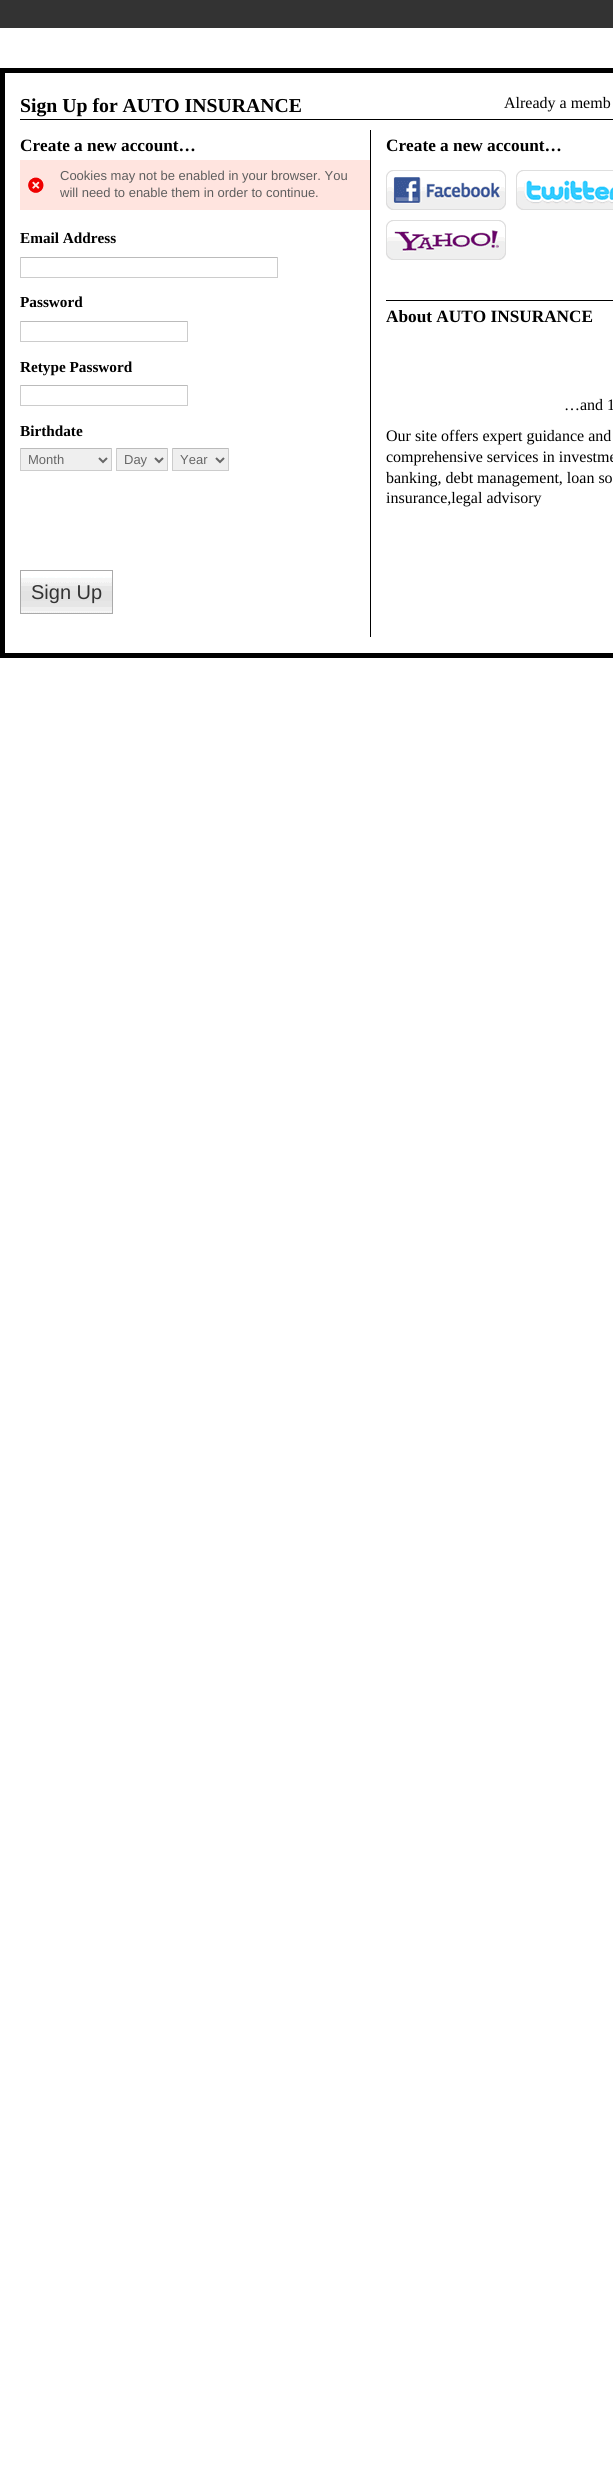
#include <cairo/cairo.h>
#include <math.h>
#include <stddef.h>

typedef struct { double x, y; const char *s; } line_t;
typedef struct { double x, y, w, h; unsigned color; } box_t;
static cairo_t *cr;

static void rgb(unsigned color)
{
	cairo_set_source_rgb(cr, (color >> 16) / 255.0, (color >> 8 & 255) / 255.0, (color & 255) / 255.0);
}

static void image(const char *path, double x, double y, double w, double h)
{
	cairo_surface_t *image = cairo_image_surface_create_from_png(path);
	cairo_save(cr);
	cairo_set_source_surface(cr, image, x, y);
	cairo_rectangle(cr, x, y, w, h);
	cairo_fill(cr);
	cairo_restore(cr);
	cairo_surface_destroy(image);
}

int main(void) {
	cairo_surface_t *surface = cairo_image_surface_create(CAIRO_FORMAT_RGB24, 613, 2492);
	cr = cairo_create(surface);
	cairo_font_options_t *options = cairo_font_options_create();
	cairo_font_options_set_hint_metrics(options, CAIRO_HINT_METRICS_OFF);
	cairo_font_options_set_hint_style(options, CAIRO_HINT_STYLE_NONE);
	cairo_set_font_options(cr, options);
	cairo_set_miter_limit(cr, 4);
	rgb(0xffffff);
	cairo_paint(cr);
	rgb(0x333333);
	cairo_rectangle(cr, 0, 0, 613, 28);
	cairo_fill(cr);
	cairo_rectangle(cr, 2.5, 70.5, 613, 585);
	rgb(0x000000);
	cairo_set_line_width(cr, 5);
	cairo_stroke(cr);
	{
		static const box_t items[] = {
			{20, 119, 593, 1, 0x000000},
			{370, 130, 1, 507, 0x000000},
			{20, 160, 350, 50, 0xffe4df},
		};
		for (size_t i = 0; i < sizeof items / sizeof *items; i++) {
			rgb(items[i].color);
			cairo_rectangle(cr, items[i].x, items[i].y, items[i].w, items[i].h);
			cairo_fill(cr);
		}
	}
	image("img/1.png", 28, 177, 16, 16);
	{
		static const box_t items[] = {
			{20, 257, 258, 1, 0xbbbbbb},
			{277, 257, 1, 21, 0xcccccc},
			{20, 277, 258, 1, 0xcccccc},
			{20, 257, 1, 21, 0xcccccc},
			{20, 321, 168, 1, 0xbbbbbb},
			{187, 321, 1, 21, 0xcccccc},
			{20, 341, 168, 1, 0xcccccc},
			{20, 321, 1, 21, 0xcccccc},
			{20, 385, 168, 1, 0xbbbbbb},
			{187, 385, 1, 21, 0xcccccc},
			{20, 405, 168, 1, 0xcccccc},
			{20, 385, 1, 21, 0xcccccc},
			{21, 449, 90, 21, 0xefefef},
			{20, 448, 92, 1, 0xbbbbbb},
			{111, 448, 1, 23, 0xcccccc},
			{20, 470, 92, 1, 0xcccccc},
			{20, 448, 1, 23, 0xcccccc},
		};
		for (size_t i = 0; i < sizeof items / sizeof *items; i++) {
			rgb(items[i].color);
			cairo_rectangle(cr, items[i].x, items[i].y, items[i].w, items[i].h);
			cairo_fill(cr);
		}
	}
	cairo_new_path(cr);
	cairo_move_to(cr, 99, 458);
	cairo_line_to(cr, 103, 462);
	cairo_line_to(cr, 107, 458);
	rgb(0x666666);
	cairo_set_line_width(cr, 2);
	cairo_stroke(cr);
	{
		static const box_t items[] = {
			{117, 449, 50, 21, 0xefefef},
			{116, 448, 52, 1, 0xbbbbbb},
			{167, 448, 1, 23, 0xcccccc},
			{116, 470, 52, 1, 0xcccccc},
			{116, 448, 1, 23, 0xcccccc},
		};
		for (size_t i = 0; i < sizeof items / sizeof *items; i++) {
			rgb(items[i].color);
			cairo_rectangle(cr, items[i].x, items[i].y, items[i].w, items[i].h);
			cairo_fill(cr);
		}
	}
	cairo_new_path(cr);
	cairo_move_to(cr, 155, 458);
	cairo_line_to(cr, 159, 462);
	cairo_line_to(cr, 163, 458);
	rgb(0x666666);
	cairo_stroke(cr);
	{
		static const box_t items[] = {
			{173, 449, 55, 21, 0xefefef},
			{172, 448, 57, 1, 0xbbbbbb},
			{228, 448, 1, 23, 0xcccccc},
			{172, 470, 57, 1, 0xcccccc},
			{172, 448, 1, 23, 0xcccccc},
		};
		for (size_t i = 0; i < sizeof items / sizeof *items; i++) {
			rgb(items[i].color);
			cairo_rectangle(cr, items[i].x, items[i].y, items[i].w, items[i].h);
			cairo_fill(cr);
		}
	}
	cairo_new_path(cr);
	cairo_move_to(cr, 216, 458);
	cairo_line_to(cr, 220, 462);
	cairo_line_to(cr, 224, 458);
	rgb(0x666666);
	cairo_stroke(cr);
	rgb(0xe3e3e3);
	cairo_rectangle(cr, 21, 591, 91, 10);
	cairo_fill(cr);
	image("img/2.png", 21, 571, 91, 42);
	cairo_rectangle(cr, 20.5, 570.5, 92, 43);
	rgb(0xaaaaaa);
	cairo_set_line_width(cr, 1);
	cairo_stroke(cr);
	rgb(0x000000);
	cairo_rectangle(cr, 386, 300, 227, 1);
	cairo_fill(cr);
	image("img/3.png", 386, 170, 120, 40);
	image("img/4.png", 516, 170, 97, 40);
	image("img/5.png", 386, 220, 120, 40);
	cairo_select_font_face(cr, "Liberation Serif", CAIRO_FONT_SLANT_NORMAL, CAIRO_FONT_WEIGHT_BOLD);
	cairo_set_font_size(cr, 19.75);
	cairo_move_to(cr, 20, 112);
	cairo_show_text(cr, "Sign Up for AUTO INSURANCE");
	cairo_select_font_face(cr, "Liberation Serif", CAIRO_FONT_SLANT_NORMAL, CAIRO_FONT_WEIGHT_NORMAL);
	cairo_set_font_size(cr, 16);
	cairo_move_to(cr, 504, 108);
	cairo_show_text(cr, "Already a memb");
	cairo_select_font_face(cr, "Liberation Serif", CAIRO_FONT_SLANT_NORMAL, CAIRO_FONT_WEIGHT_BOLD);
	cairo_set_font_size(cr, 17.25);
	cairo_move_to(cr, 20, 151);
	cairo_show_text(cr, "Create a new account…");
	cairo_select_font_face(cr, "Liberation Sans", CAIRO_FONT_SLANT_NORMAL, CAIRO_FONT_WEIGHT_NORMAL);
	cairo_set_font_size(cr, 13);
	rgb(0x5e5e5e);
	cairo_move_to(cr, 60, 180);
	cairo_show_text(cr, "Cookies may not be enabled in your browser. You");
	cairo_move_to(cr, 60, 197);
	cairo_show_text(cr, "will need to enable them in order to continue.");
	cairo_select_font_face(cr, "Liberation Serif", CAIRO_FONT_SLANT_NORMAL, CAIRO_FONT_WEIGHT_BOLD);
	cairo_set_font_size(cr, 15.25);
	rgb(0x000000);
	{
		static const line_t items[] = {
			{20, 243, "Email Address"},
			{20, 307, "Password"},
			{20, 372, "Retype Password"},
			{20, 436, "Birthdate"},
		};
		for (size_t i = 0; i < sizeof items / sizeof *items; i++) {
			cairo_move_to(cr, items[i].x, items[i].y);
			cairo_show_text(cr, items[i].s);
		}
	}
	cairo_select_font_face(cr, "Liberation Sans", CAIRO_FONT_SLANT_NORMAL, CAIRO_FONT_WEIGHT_NORMAL);
	cairo_set_font_size(cr, 13);
	rgb(0x666666);
	{
		static const line_t items[] = {
			{28, 464, "Month"},
			{124, 464, "Day"},
			{180, 464, "Year"},
		};
		for (size_t i = 0; i < sizeof items / sizeof *items; i++) {
			cairo_move_to(cr, items[i].x, items[i].y);
			cairo_show_text(cr, items[i].s);
		}
	}
	cairo_set_font_size(cr, 20);
	rgb(0x333333);
	cairo_move_to(cr, 31, 599);
	cairo_show_text(cr, "Sign Up");
	cairo_select_font_face(cr, "Liberation Serif", CAIRO_FONT_SLANT_NORMAL, CAIRO_FONT_WEIGHT_BOLD);
	cairo_set_font_size(cr, 17.25);
	rgb(0x000000);
	cairo_move_to(cr, 386, 151);
	cairo_show_text(cr, "Create a new account…");
	cairo_move_to(cr, 386, 322);
	cairo_show_text(cr, "About AUTO INSURANCE");
	cairo_select_font_face(cr, "Liberation Serif", CAIRO_FONT_SLANT_NORMAL, CAIRO_FONT_WEIGHT_NORMAL);
	cairo_set_font_size(cr, 16);
	{
		static const line_t items[] = {
			{564, 410, "…and 1"},
			{386, 441, "Our site offers expert guidance and"},
			{386, 462, "comprehensive services in investme"},
			{386, 483, "banking, debt management, loan so"},
			{386, 503, "insurance,legal advisory"},
		};
		for (size_t i = 0; i < sizeof items / sizeof *items; i++) {
			cairo_move_to(cr, items[i].x, items[i].y);
			cairo_show_text(cr, items[i].s);
		}
	}
	cairo_surface_write_to_png(surface, "page.png");
	cairo_font_options_destroy(options);
	cairo_destroy(cr);
	cairo_surface_destroy(surface);
	return 0;
}
